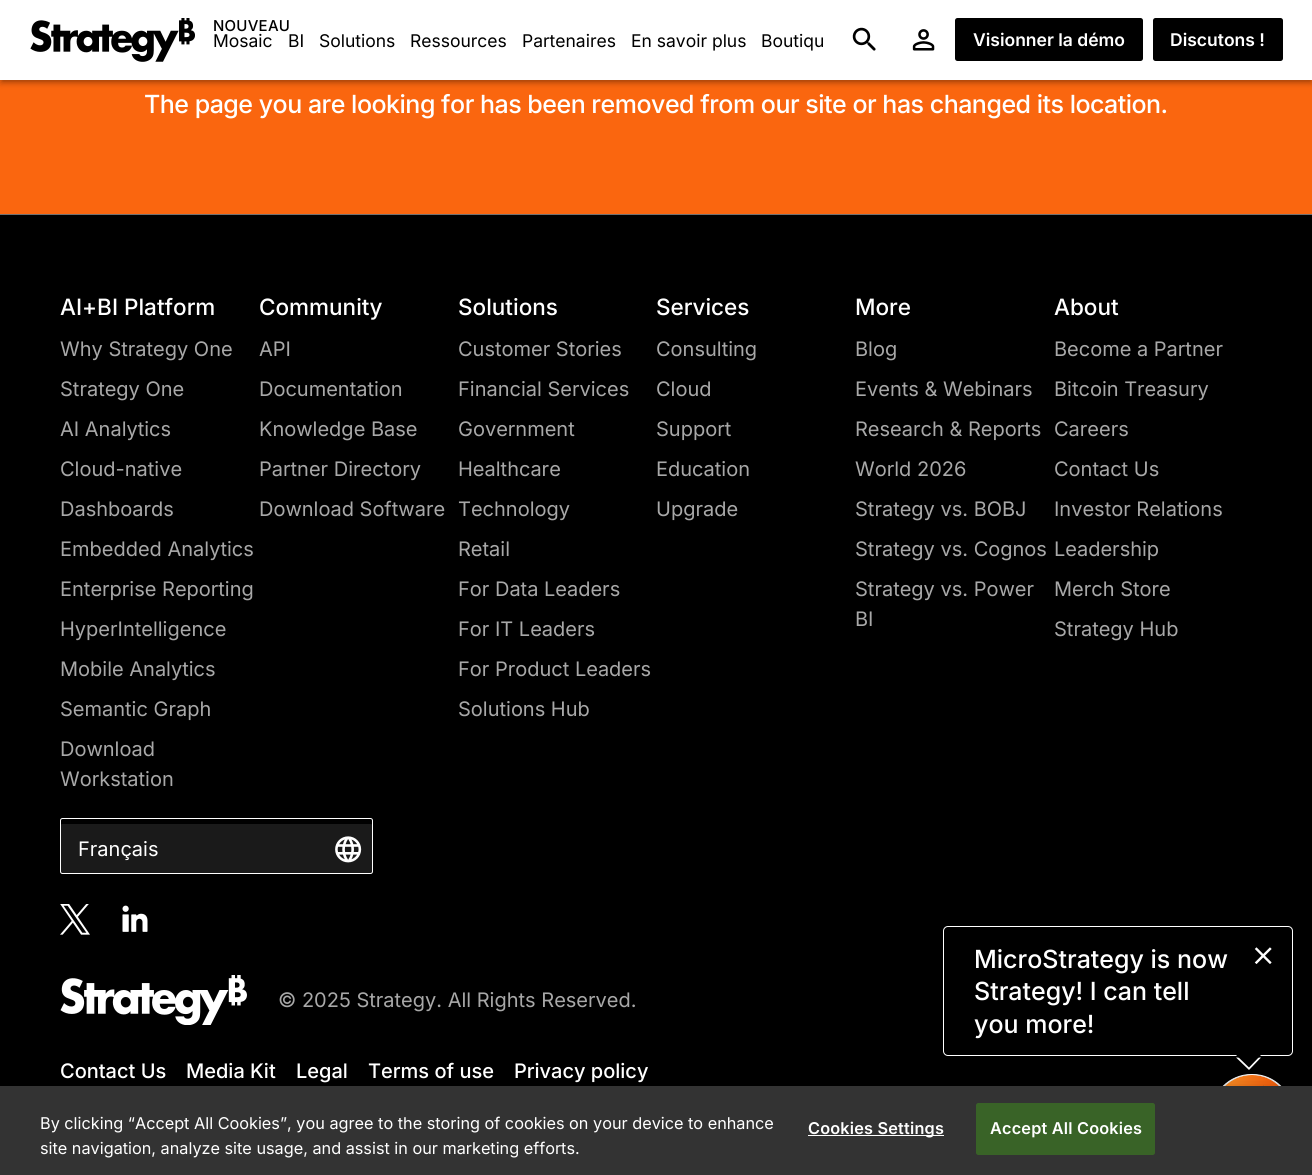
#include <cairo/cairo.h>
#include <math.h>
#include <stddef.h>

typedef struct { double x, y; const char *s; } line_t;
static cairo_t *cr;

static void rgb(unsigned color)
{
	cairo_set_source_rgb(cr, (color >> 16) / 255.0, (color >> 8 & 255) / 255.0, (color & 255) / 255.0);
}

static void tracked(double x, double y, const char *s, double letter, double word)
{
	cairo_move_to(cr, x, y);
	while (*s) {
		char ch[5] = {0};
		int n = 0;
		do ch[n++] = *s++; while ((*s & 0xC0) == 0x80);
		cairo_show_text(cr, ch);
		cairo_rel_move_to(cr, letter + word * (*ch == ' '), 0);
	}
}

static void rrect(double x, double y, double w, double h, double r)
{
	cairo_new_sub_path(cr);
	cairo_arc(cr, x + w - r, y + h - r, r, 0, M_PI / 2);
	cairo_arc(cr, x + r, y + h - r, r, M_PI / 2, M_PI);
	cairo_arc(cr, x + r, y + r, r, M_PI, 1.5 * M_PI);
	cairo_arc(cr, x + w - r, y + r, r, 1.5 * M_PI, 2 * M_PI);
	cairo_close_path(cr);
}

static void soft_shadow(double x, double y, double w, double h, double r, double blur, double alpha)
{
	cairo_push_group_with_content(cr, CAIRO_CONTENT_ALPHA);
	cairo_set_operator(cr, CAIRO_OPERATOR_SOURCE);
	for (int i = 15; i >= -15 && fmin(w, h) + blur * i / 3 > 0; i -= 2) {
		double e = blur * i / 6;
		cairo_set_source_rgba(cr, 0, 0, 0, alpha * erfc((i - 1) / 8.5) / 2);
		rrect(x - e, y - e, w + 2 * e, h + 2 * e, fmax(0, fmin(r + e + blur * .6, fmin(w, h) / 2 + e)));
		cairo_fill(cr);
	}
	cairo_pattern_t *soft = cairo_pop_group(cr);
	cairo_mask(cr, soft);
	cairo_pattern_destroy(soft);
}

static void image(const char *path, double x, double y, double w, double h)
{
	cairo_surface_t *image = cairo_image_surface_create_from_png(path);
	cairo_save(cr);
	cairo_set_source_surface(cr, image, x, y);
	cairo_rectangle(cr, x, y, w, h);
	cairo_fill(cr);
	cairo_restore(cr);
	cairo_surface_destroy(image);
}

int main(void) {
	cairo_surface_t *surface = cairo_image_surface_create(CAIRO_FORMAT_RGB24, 1312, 1175);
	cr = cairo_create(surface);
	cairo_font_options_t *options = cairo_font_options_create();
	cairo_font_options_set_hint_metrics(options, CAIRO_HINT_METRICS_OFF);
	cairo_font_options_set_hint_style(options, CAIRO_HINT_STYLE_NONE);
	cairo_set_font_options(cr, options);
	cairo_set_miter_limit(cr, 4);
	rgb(0x000000);
	cairo_paint(cr);
	rgb(0xfa660f);
	cairo_rectangle(cr, 0, 80, 1312, 134);
	cairo_fill(cr);
	rgb(0x000000);
	soft_shadow(0, 1, 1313, 80, 0, 5, 0.12);
	soft_shadow(0, 4, 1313, 80, 0, 2.5, 0.14);
	soft_shadow(3, 6, 1307, 75, 0, 2, 0.2);
	rgb(0xffffff);
	cairo_rectangle(cr, 0, 0, 1312, 80);
	cairo_fill(cr);
	image("img/1.png", 30, 18, 165, 44);
	image("img/2.png", 852, 27, 24, 24);
	image("img/3.png", 912, 29, 23, 22);
	rgb(0x000000);
	rrect(956.5, 19.5, 185, 40, 1);
	cairo_fill_preserve(cr);
	cairo_set_line_width(cr, 3);
	cairo_stroke(cr);
	rrect(1154.5, 19.5, 127, 40, 1);
	cairo_fill_preserve(cr);
	cairo_stroke(cr);
	rgb(0x717171);
	cairo_rectangle(cr, 0, 214, 1312, 1);
	cairo_fill(cr);
	rgb(0x1a1a1a);
	rrect(60, 824, 313, 50, 2.5);
	cairo_fill(cr);
	image("img/4.png", 335, 836, 27, 27);
	rrect(60.5, 818.5, 312, 55, 2);
	rgb(0xffffff);
	cairo_set_line_width(cr, 1);
	cairo_stroke(cr);
	image("img/5.png", 60, 904, 30, 31);
	image("img/6.png", 122, 905, 26, 27);
	image("img/7.png", 60, 975, 187, 50);
	rrect(943.5, 926.5, 349, 129, 4.5);
	cairo_stroke(cr);
	image("img/8.png", 1254, 947, 18, 17);
	cairo_new_path(cr);
	cairo_move_to(cr, 1236, 1057.5);
	cairo_line_to(cr, 1261, 1057.5);
	cairo_line_to(cr, 1249, 1070);
	cairo_close_path(cr);
	cairo_fill(cr);
	rgb(0x000000);
	cairo_new_path(cr);
	cairo_move_to(cr, 1236, 1055);
	cairo_line_to(cr, 1261, 1055);
	cairo_line_to(cr, 1249, 1067.5);
	cairo_close_path(cr);
	cairo_fill(cr);
	rgb(0xe0e0e0);
	rrect(1211.5, 1074.5, 81, 80, 40);
	cairo_fill_preserve(cr);
	rgb(0xffffff);
	cairo_stroke(cr);
	image("img/9.png", 1225, 1075, 54, 11);
	rgb(0x000000);
	soft_shadow(0, 1086, 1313, 89, 0, 11, 0.2);
	rgb(0x333333);
	cairo_rectangle(cr, 0, 1086, 1312, 89);
	cairo_fill(cr);
	rgb(0xffffff);
	cairo_rectangle(cr, 808, 1135, 136, 1);
	cairo_fill(cr);
	rgb(0x396327);
	rrect(976.5, 1103.5, 178, 51, 2);
	cairo_fill_preserve(cr);
	cairo_stroke(cr);
	cairo_select_font_face(cr, "Inter Medium", CAIRO_FONT_SLANT_NORMAL, CAIRO_FONT_WEIGHT_NORMAL);
	cairo_set_font_size(cr, 15);
	rgb(0x000000);
	tracked(213, 31, "NOUVEAU", 0.25, 0);
	cairo_select_font_face(cr, "Inter", CAIRO_FONT_SLANT_NORMAL, CAIRO_FONT_WEIGHT_NORMAL);
	cairo_set_font_size(cr, 17.5);
	{
		static const line_t items[] = {
			{213, 47, "Mosaic"},
			{288, 47, "BI"},
			{319, 47, "Solutions"},
			{410, 47, "Ressources"},
			{522, 47, "Partenaires"},
			{631, 47, "En savoir plus"},
			{761, 47, "Boutiqu"},
		};
		for (size_t i = 0; i < sizeof items / sizeof *items; i++) {
			cairo_move_to(cr, items[i].x, items[i].y);
			cairo_show_text(cr, items[i].s);
		}
	}
	cairo_select_font_face(cr, "Inter SemiBold", CAIRO_FONT_SLANT_NORMAL, CAIRO_FONT_WEIGHT_NORMAL);
	rgb(0xffffff);
	cairo_move_to(cr, 973, 46);
	cairo_show_text(cr, "Visionner la démo");
	cairo_move_to(cr, 1170, 46);
	cairo_show_text(cr, "Discutons !");
	cairo_select_font_face(cr, "Inter Medium", CAIRO_FONT_SLANT_NORMAL, CAIRO_FONT_WEIGHT_NORMAL);
	cairo_set_font_size(cr, 25);
	tracked(144, 113, "The page you are looking for has been removed from our site or has changed its location.", -0.5, 0);
	cairo_set_font_size(cr, 22.5);
	cairo_move_to(cr, 60, 315);
	cairo_show_text(cr, "AI+BI Platform");
	cairo_select_font_face(cr, "Inter", CAIRO_FONT_SLANT_NORMAL, CAIRO_FONT_WEIGHT_NORMAL);
	cairo_set_font_size(cr, 20);
	rgb(0xa8a8a8);
	{
		static const line_t items[] = {
			{60, 356, "Why Strategy One"},
			{60, 396, "Strategy One"},
			{60, 436, "AI Analytics"},
			{60, 476, "Cloud-native"},
			{60, 516, "Dashboards"},
			{60, 556, "Embedded Analytics"},
			{60, 596, "Enterprise Reporting"},
			{60, 636, "HyperIntelligence"},
			{60, 676, "Mobile Analytics"},
			{60, 716, "Semantic Graph"},
			{60, 756, "Download"},
			{60, 786, "Workstation"},
		};
		for (size_t i = 0; i < sizeof items / sizeof *items; i++) {
			cairo_move_to(cr, items[i].x, items[i].y);
			cairo_show_text(cr, items[i].s);
		}
	}
	cairo_select_font_face(cr, "Inter Medium", CAIRO_FONT_SLANT_NORMAL, CAIRO_FONT_WEIGHT_NORMAL);
	cairo_set_font_size(cr, 22.5);
	rgb(0xffffff);
	cairo_move_to(cr, 259, 315);
	cairo_show_text(cr, "Community");
	cairo_select_font_face(cr, "Inter", CAIRO_FONT_SLANT_NORMAL, CAIRO_FONT_WEIGHT_NORMAL);
	cairo_set_font_size(cr, 20);
	rgb(0xa8a8a8);
	{
		static const line_t items[] = {
			{259, 356, "API"},
			{259, 396, "Documentation"},
			{259, 436, "Knowledge Base"},
			{259, 476, "Partner Directory"},
			{259, 516, "Download Software"},
		};
		for (size_t i = 0; i < sizeof items / sizeof *items; i++) {
			cairo_move_to(cr, items[i].x, items[i].y);
			cairo_show_text(cr, items[i].s);
		}
	}
	cairo_select_font_face(cr, "Inter Medium", CAIRO_FONT_SLANT_NORMAL, CAIRO_FONT_WEIGHT_NORMAL);
	cairo_set_font_size(cr, 22.5);
	rgb(0xffffff);
	cairo_move_to(cr, 458, 315);
	cairo_show_text(cr, "Solutions");
	cairo_select_font_face(cr, "Inter", CAIRO_FONT_SLANT_NORMAL, CAIRO_FONT_WEIGHT_NORMAL);
	cairo_set_font_size(cr, 20);
	rgb(0xa8a8a8);
	{
		static const line_t items[] = {
			{458, 356, "Customer Stories"},
			{458, 396, "Financial Services"},
			{458, 436, "Government"},
			{458, 476, "Healthcare"},
			{458, 516, "Technology"},
			{458, 556, "Retail"},
			{458, 596, "For Data Leaders"},
			{458, 636, "For IT Leaders"},
			{458, 676, "For Product Leaders"},
			{458, 716, "Solutions Hub"},
		};
		for (size_t i = 0; i < sizeof items / sizeof *items; i++) {
			cairo_move_to(cr, items[i].x, items[i].y);
			cairo_show_text(cr, items[i].s);
		}
	}
	cairo_select_font_face(cr, "Inter Medium", CAIRO_FONT_SLANT_NORMAL, CAIRO_FONT_WEIGHT_NORMAL);
	cairo_set_font_size(cr, 22.5);
	rgb(0xffffff);
	cairo_move_to(cr, 656, 315);
	cairo_show_text(cr, "Services");
	cairo_select_font_face(cr, "Inter", CAIRO_FONT_SLANT_NORMAL, CAIRO_FONT_WEIGHT_NORMAL);
	cairo_set_font_size(cr, 20);
	rgb(0xa8a8a8);
	{
		static const line_t items[] = {
			{656, 356, "Consulting"},
			{656, 396, "Cloud"},
			{656, 436, "Support"},
			{656, 476, "Education"},
			{656, 516, "Upgrade"},
		};
		for (size_t i = 0; i < sizeof items / sizeof *items; i++) {
			cairo_move_to(cr, items[i].x, items[i].y);
			cairo_show_text(cr, items[i].s);
		}
	}
	cairo_select_font_face(cr, "Inter Medium", CAIRO_FONT_SLANT_NORMAL, CAIRO_FONT_WEIGHT_NORMAL);
	cairo_set_font_size(cr, 22.5);
	rgb(0xffffff);
	cairo_move_to(cr, 855, 315);
	cairo_show_text(cr, "More");
	cairo_select_font_face(cr, "Inter", CAIRO_FONT_SLANT_NORMAL, CAIRO_FONT_WEIGHT_NORMAL);
	cairo_set_font_size(cr, 20);
	rgb(0xa8a8a8);
	{
		static const line_t items[] = {
			{855, 356, "Blog"},
			{855, 396, "Events & Webinars"},
			{855, 436, "Research & Reports"},
			{855, 476, "World 2026"},
			{855, 516, "Strategy vs. BOBJ"},
			{855, 556, "Strategy vs. Cognos"},
			{855, 596, "Strategy vs. Power"},
			{855, 626, "BI"},
		};
		for (size_t i = 0; i < sizeof items / sizeof *items; i++) {
			cairo_move_to(cr, items[i].x, items[i].y);
			cairo_show_text(cr, items[i].s);
		}
	}
	cairo_select_font_face(cr, "Inter Medium", CAIRO_FONT_SLANT_NORMAL, CAIRO_FONT_WEIGHT_NORMAL);
	cairo_set_font_size(cr, 22.5);
	rgb(0xffffff);
	cairo_move_to(cr, 1054, 315);
	cairo_show_text(cr, "About");
	cairo_select_font_face(cr, "Inter", CAIRO_FONT_SLANT_NORMAL, CAIRO_FONT_WEIGHT_NORMAL);
	cairo_set_font_size(cr, 20);
	rgb(0xa8a8a8);
	{
		static const line_t items[] = {
			{1054, 356, "Become a Partner"},
			{1054, 396, "Bitcoin Treasury"},
			{1054, 436, "Careers"},
			{1054, 476, "Contact Us"},
			{1054, 516, "Investor Relations"},
			{1054, 556, "Leadership"},
			{1054, 596, "Merch Store"},
			{1054, 636, "Strategy Hub"},
		};
		for (size_t i = 0; i < sizeof items / sizeof *items; i++) {
			cairo_move_to(cr, items[i].x, items[i].y);
			cairo_show_text(cr, items[i].s);
		}
	}
	rgb(0xffffff);
	cairo_move_to(cr, 78, 856);
	cairo_show_text(cr, "Français");
	rgb(0xa8a8a8);
	cairo_move_to(cr, 278, 1007);
	cairo_show_text(cr, "© 2025 Strategy. All Rights Reserved.");
	cairo_select_font_face(cr, "Inter Medium", CAIRO_FONT_SLANT_NORMAL, CAIRO_FONT_WEIGHT_NORMAL);
	rgb(0xffffff);
	{
		static const line_t items[] = {
			{60, 1078, "Contact Us"},
			{186, 1078, "Media Kit"},
			{296, 1078, "Legal"},
			{368, 1078, "Terms of use"},
			{514, 1078, "Privacy policy"},
		};
		for (size_t i = 0; i < sizeof items / sizeof *items; i++) {
			cairo_move_to(cr, items[i].x, items[i].y);
			cairo_show_text(cr, items[i].s);
		}
	}
	cairo_set_font_size(cr, 25);
	{
		static const line_t items[] = {
			{974, 968, "MicroStrategy is now"},
			{974, 1000, "Strategy! I can tell"},
			{974, 1033, "you more!"},
		};
		for (size_t i = 0; i < sizeof items / sizeof *items; i++) {
			cairo_move_to(cr, items[i].x, items[i].y);
			cairo_show_text(cr, items[i].s);
		}
	}
	cairo_select_font_face(cr, "Inter", CAIRO_FONT_SLANT_NORMAL, CAIRO_FONT_WEIGHT_NORMAL);
	cairo_set_font_size(cr, 16.25);
	cairo_move_to(cr, 40, 1129);
	cairo_show_text(cr, "By clicking “Accept All Cookies”, you agree to the storing of cookies on your device to enhance");
	cairo_move_to(cr, 40, 1154);
	cairo_show_text(cr, "site navigation, analyze site usage, and assist in our marketing efforts.");
	cairo_select_font_face(cr, "Inter SemiBold", CAIRO_FONT_SLANT_NORMAL, CAIRO_FONT_WEIGHT_NORMAL);
	tracked(808, 1134, "Cookies Settings", 0.2, 0);
	tracked(990, 1134, "Accept All Cookies", 0.2, 0);
	cairo_surface_write_to_png(surface, "page.png");
	cairo_font_options_destroy(options);
	cairo_destroy(cr);
	cairo_surface_destroy(surface);
	return 0;
}
